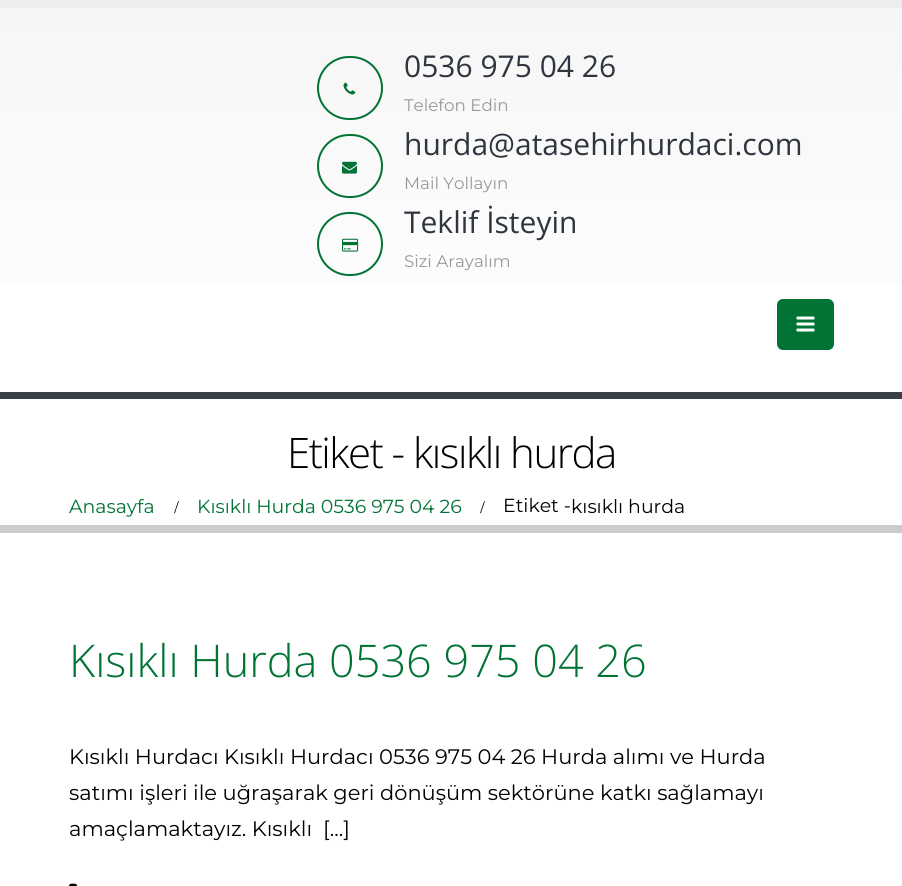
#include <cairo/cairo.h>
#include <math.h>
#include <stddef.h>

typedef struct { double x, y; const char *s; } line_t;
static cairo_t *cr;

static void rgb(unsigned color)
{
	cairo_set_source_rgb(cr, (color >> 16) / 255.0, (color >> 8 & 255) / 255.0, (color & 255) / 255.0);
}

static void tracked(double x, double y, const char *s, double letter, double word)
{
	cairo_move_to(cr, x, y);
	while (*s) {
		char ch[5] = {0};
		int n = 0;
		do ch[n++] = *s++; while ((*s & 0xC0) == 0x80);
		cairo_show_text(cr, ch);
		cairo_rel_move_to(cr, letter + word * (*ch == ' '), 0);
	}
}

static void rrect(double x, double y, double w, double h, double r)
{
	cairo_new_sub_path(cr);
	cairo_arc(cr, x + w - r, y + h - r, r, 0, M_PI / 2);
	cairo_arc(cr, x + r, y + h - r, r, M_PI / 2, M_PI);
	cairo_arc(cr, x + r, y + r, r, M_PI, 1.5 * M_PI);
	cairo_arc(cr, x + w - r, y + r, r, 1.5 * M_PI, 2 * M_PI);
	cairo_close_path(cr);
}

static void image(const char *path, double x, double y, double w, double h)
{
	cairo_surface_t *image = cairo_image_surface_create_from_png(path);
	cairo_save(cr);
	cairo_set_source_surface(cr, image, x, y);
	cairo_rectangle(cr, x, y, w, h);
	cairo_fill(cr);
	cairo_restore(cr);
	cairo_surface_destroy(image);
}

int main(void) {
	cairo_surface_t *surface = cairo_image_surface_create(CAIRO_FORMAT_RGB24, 902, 886);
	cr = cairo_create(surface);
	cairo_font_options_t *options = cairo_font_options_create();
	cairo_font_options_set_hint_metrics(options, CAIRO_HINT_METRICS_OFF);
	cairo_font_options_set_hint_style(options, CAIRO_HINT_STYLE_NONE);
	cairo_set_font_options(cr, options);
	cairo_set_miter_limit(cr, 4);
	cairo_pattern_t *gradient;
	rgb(0xffffff);
	cairo_paint(cr);
	rgb(0xededed);
	cairo_rectangle(cr, 0, 0, 902, 8);
	cairo_fill(cr);
	gradient = cairo_pattern_create_linear(452, 7.5, 452, 392);
	cairo_pattern_add_color_stop_rgba(gradient, 0, 0.965, 0.965, 0.965, 1);
	cairo_pattern_add_color_stop_rgba(gradient, 1, 1, 1, 1, 1);
	cairo_set_source(cr, gradient);
	cairo_pattern_destroy(gradient);
	cairo_rectangle(cr, 0, 8, 902, 277);
	cairo_fill(cr);
	rrect(318, 57, 64, 62, 31);
	rgb(0x017335);
	cairo_stroke(cr);
	image("img/1.png", 343, 82, 13, 13);
	rrect(318, 135, 64, 62, 31);
	cairo_stroke(cr);
	image("img/2.png", 342, 161, 15, 13);
	rrect(318, 213, 64, 62, 31);
	cairo_stroke(cr);
	image("img/3.png", 342, 238, 17, 14);
	rrect(777, 299, 57, 51, 6);
	cairo_fill(cr);
	image("img/4.png", 796, 316, 19, 16);
	rgb(0x384045);
	cairo_rectangle(cr, 0, 392, 902, 7);
	cairo_fill(cr);
	rgb(0xcccccc);
	cairo_rectangle(cr, 0, 525, 902, 8);
	cairo_fill(cr);
	image("img/5.png", 69, 883, 9, 3);
	cairo_select_font_face(cr, "Open Sans", CAIRO_FONT_SLANT_NORMAL, CAIRO_FONT_WEIGHT_NORMAL);
	cairo_set_font_size(cr, 30);
	rgb(0x2e353e);
	cairo_move_to(cr, 404, 77);
	cairo_show_text(cr, "0536 975 04 26");
	cairo_select_font_face(cr, "Montserrat", CAIRO_FONT_SLANT_NORMAL, CAIRO_FONT_WEIGHT_NORMAL);
	cairo_set_font_size(cr, 16.75);
	rgb(0x999999);
	cairo_move_to(cr, 404, 111);
	cairo_show_text(cr, "Telefon Edin");
	cairo_select_font_face(cr, "Open Sans", CAIRO_FONT_SLANT_NORMAL, CAIRO_FONT_WEIGHT_NORMAL);
	cairo_set_font_size(cr, 30);
	rgb(0x2e353e);
	cairo_move_to(cr, 404, 155);
	cairo_show_text(cr, "hurda@atasehirhurdaci.com");
	cairo_select_font_face(cr, "Montserrat", CAIRO_FONT_SLANT_NORMAL, CAIRO_FONT_WEIGHT_NORMAL);
	cairo_set_font_size(cr, 16.75);
	rgb(0x999999);
	cairo_move_to(cr, 404, 189);
	cairo_show_text(cr, "Mail Yollayın");
	cairo_select_font_face(cr, "Open Sans", CAIRO_FONT_SLANT_NORMAL, CAIRO_FONT_WEIGHT_NORMAL);
	cairo_set_font_size(cr, 30);
	rgb(0x2e353e);
	cairo_move_to(cr, 404, 233);
	cairo_show_text(cr, "Teklif İsteyin");
	cairo_select_font_face(cr, "Montserrat", CAIRO_FONT_SLANT_NORMAL, CAIRO_FONT_WEIGHT_NORMAL);
	cairo_set_font_size(cr, 16.75);
	rgb(0x999999);
	cairo_move_to(cr, 404, 267);
	cairo_show_text(cr, "Sizi Arayalım");
	cairo_select_font_face(cr, "Open Sans Light", CAIRO_FONT_SLANT_NORMAL, CAIRO_FONT_WEIGHT_NORMAL);
	cairo_set_font_size(cr, 42);
	rgb(0x000000);
	tracked(287, 468, "Etiket - kısıklı hurda", -1.5, 0);
	cairo_select_font_face(cr, "Montserrat", CAIRO_FONT_SLANT_NORMAL, CAIRO_FONT_WEIGHT_NORMAL);
	cairo_set_font_size(cr, 18.9);
	rgb(0x017335);
	cairo_move_to(cr, 69, 513);
	cairo_show_text(cr, "Anasayfa");
	cairo_select_font_face(cr, "Liberation Serif", CAIRO_FONT_SLANT_NORMAL, CAIRO_FONT_WEIGHT_NORMAL);
	cairo_set_font_size(cr, 18);
	rgb(0x000000);
	cairo_move_to(cr, 174, 513);
	cairo_show_text(cr, "/");
	cairo_select_font_face(cr, "Montserrat", CAIRO_FONT_SLANT_NORMAL, CAIRO_FONT_WEIGHT_NORMAL);
	cairo_set_font_size(cr, 18.9);
	rgb(0x017335);
	cairo_move_to(cr, 197, 513);
	cairo_show_text(cr, "Kısıklı Hurda 0536 975 04 26");
	cairo_select_font_face(cr, "Liberation Serif", CAIRO_FONT_SLANT_NORMAL, CAIRO_FONT_WEIGHT_NORMAL);
	cairo_set_font_size(cr, 18);
	rgb(0x000000);
	cairo_move_to(cr, 480, 513);
	cairo_show_text(cr, "/");
	cairo_select_font_face(cr, "Montserrat", CAIRO_FONT_SLANT_NORMAL, CAIRO_FONT_WEIGHT_NORMAL);
	cairo_set_font_size(cr, 18.9);
	cairo_move_to(cr, 503, 512);
	cairo_show_text(cr, "Etiket -");
	cairo_move_to(cr, 571, 513);
	cairo_show_text(cr, "kısıklı hurda");
	cairo_select_font_face(cr, "Open Sans Light", CAIRO_FONT_SLANT_NORMAL, CAIRO_FONT_WEIGHT_NORMAL);
	cairo_set_font_size(cr, 45);
	rgb(0x017335);
	cairo_move_to(cr, 69, 677);
	cairo_show_text(cr, "Kısıklı Hurda 0536 975 04 26");
	cairo_select_font_face(cr, "Montserrat", CAIRO_FONT_SLANT_NORMAL, CAIRO_FONT_WEIGHT_NORMAL);
	cairo_set_font_size(cr, 21);
	rgb(0x000000);
	{
		static const line_t items[] = {
			{69, 764, "Kısıklı Hurdacı Kısıklı Hurdacı 0536 975 04 26 Hurda alımı ve Hurda"},
			{69, 800, "satımı işleri ile uğraşarak geri dönüşüm sektörüne katkı sağlamayı"},
			{69, 836, "amaçlamaktayız. Kısıklı  [...]"},
		};
		for (size_t i = 0; i < sizeof items / sizeof *items; i++) {
			cairo_move_to(cr, items[i].x, items[i].y);
			cairo_show_text(cr, items[i].s);
		}
	}
	cairo_surface_write_to_png(surface, "page.png");
	cairo_font_options_destroy(options);
	cairo_destroy(cr);
	cairo_surface_destroy(surface);
	return 0;
}
